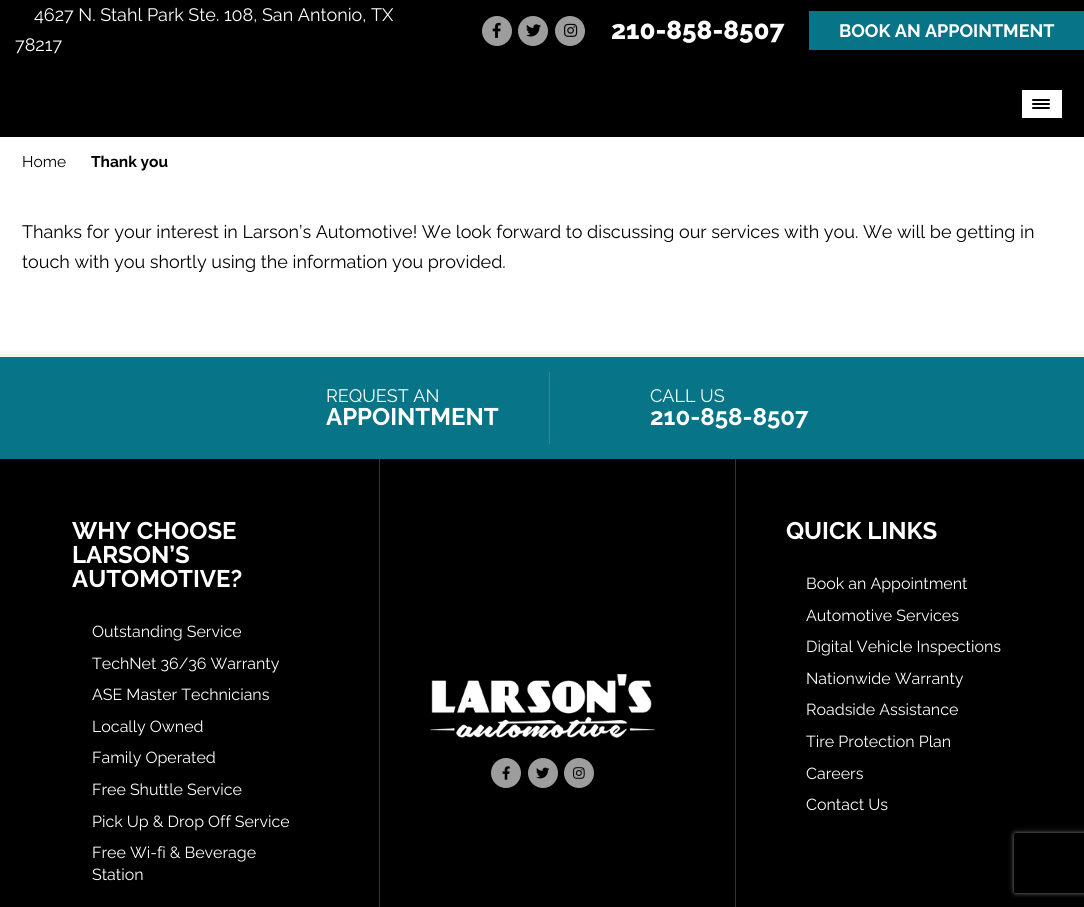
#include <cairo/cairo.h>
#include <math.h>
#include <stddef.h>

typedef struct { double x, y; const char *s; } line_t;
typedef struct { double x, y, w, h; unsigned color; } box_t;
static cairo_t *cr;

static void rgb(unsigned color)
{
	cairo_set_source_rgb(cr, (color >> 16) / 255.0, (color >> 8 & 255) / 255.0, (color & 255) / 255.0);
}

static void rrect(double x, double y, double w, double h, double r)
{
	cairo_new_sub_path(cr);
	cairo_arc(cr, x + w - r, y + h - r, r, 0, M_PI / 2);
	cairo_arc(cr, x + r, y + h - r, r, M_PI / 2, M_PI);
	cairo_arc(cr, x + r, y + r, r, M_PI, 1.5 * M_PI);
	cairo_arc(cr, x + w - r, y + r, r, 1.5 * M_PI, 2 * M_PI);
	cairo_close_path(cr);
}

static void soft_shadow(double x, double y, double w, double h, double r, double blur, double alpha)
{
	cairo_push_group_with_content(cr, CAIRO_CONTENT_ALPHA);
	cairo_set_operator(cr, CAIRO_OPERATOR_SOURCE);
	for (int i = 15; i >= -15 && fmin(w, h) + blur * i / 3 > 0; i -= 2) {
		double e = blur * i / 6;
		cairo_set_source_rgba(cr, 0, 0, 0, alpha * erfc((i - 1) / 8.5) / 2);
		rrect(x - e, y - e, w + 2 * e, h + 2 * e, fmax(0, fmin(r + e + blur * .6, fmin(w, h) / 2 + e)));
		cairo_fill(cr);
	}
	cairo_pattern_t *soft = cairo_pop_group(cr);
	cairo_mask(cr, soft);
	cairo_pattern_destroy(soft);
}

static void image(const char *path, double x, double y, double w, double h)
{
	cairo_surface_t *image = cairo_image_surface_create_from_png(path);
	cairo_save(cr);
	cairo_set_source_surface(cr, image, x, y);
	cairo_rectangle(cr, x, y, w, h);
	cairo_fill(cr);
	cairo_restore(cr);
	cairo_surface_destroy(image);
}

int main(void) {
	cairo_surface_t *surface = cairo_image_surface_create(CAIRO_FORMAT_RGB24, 1084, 907);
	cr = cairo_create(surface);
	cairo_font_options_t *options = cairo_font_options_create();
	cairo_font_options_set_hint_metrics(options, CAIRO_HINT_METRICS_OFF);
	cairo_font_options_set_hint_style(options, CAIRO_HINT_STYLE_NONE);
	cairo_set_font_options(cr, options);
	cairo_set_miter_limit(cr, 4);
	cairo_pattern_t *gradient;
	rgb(0xffffff);
	cairo_paint(cr);
	rgb(0x000000);
	cairo_rectangle(cr, 0, 0, 1084, 137);
	cairo_fill(cr);
	rgb(0x9c9d9c);
	cairo_arc(cr, 497, 31, 15, 0, 2 * M_PI);
	cairo_fill(cr);
	image("img/1.png", 492, 22, 9, 16);
	cairo_arc(cr, 533, 31, 15, 0, 2 * M_PI);
	cairo_fill(cr);
	image("img/2.png", 526, 24, 15, 13);
	cairo_arc(cr, 570, 31, 15, 0, 2 * M_PI);
	cairo_fill(cr);
	image("img/3.png", 564, 23, 14, 14);
	rgb(0x077487);
	cairo_rectangle(cr, 809, 11, 275, 39);
	cairo_fill(cr);
	rgb(0xffffff);
	cairo_rectangle(cr, 1022, 90, 40, 28);
	cairo_fill(cr);
	rgb(0x000000);
	rrect(1032, 99, 18, 2, 1);
	cairo_fill(cr);
	rrect(1032, 103, 18, 2, 1);
	cairo_fill(cr);
	rrect(1032, 107, 18, 2, 1);
	cairo_fill(cr);
	gradient = cairo_pattern_create_linear(542, 187, 542, 357);
	cairo_pattern_add_color_stop_rgba(gradient, 0.95, 1, 1, 1, 1);
	cairo_pattern_add_color_stop_rgba(gradient, 1, 0.937, 0.937, 0.937, 1);
	cairo_set_source(cr, gradient);
	cairo_pattern_destroy(gradient);
	cairo_rectangle(cr, 0, 350, 1084, 7);
	cairo_fill(cr);
	{
		static const box_t items[] = {
			{0, 357, 1084, 102, 0x077487},
			{549, 372, 1, 72, 0x2c8999},
			{0, 459, 1084, 448, 0x000000},
			{379, 459, 1, 448, 0x333333},
		};
		for (size_t i = 0; i < sizeof items / sizeof *items; i++) {
			rgb(items[i].color);
			cairo_rectangle(cr, items[i].x, items[i].y, items[i].w, items[i].h);
			cairo_fill(cr);
		}
	}
	image("img/4.png", 430, 674, 225, 64);
	rgb(0x9c9d9c);
	cairo_arc(cr, 506, 773, 15, 0, 2 * M_PI);
	cairo_fill(cr);
	image("img/5.png", 502, 766, 8, 14);
	cairo_arc(cr, 543, 773, 15, 0, 2 * M_PI);
	cairo_fill(cr);
	image("img/6.png", 536, 767, 14, 12);
	cairo_arc(cr, 579, 773, 15, 0, 2 * M_PI);
	cairo_fill(cr);
	image("img/7.png", 573, 767, 12, 12);
	rgb(0x333333);
	cairo_rectangle(cr, 735, 459, 1, 448);
	cairo_fill(cr);
	cairo_save(cr);
	cairo_set_fill_rule(cr, CAIRO_FILL_RULE_EVEN_ODD);
	cairo_new_path(cr);
	cairo_move_to(cr, 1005, 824);
	cairo_line_to(cr, 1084, 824);
	cairo_line_to(cr, 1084, 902);
	cairo_line_to(cr, 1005, 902);
	cairo_close_path(cr);
	cairo_move_to(cr, 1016, 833);
	cairo_line_to(cr, 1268, 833);
	cairo_curve_to(cr, 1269, 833, 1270, 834, 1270, 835);
	cairo_line_to(cr, 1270, 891);
	cairo_curve_to(cr, 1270, 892, 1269, 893, 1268, 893);
	cairo_line_to(cr, 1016, 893);
	cairo_curve_to(cr, 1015, 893, 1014, 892, 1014, 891);
	cairo_line_to(cr, 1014, 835);
	cairo_curve_to(cr, 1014, 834, 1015, 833, 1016, 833);
	cairo_close_path(cr);
	cairo_clip(cr);
	rgb(0x808080);
	soft_shadow(1014, 833, 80, 60, 2, 2.5, 1);
	cairo_restore(cr);
	cairo_select_font_face(cr, "Raleway", CAIRO_FONT_SLANT_NORMAL, CAIRO_FONT_WEIGHT_NORMAL);
	cairo_set_font_size(cr, 18);
	rgb(0xffffff);
	cairo_move_to(cr, 34, 21);
	cairo_show_text(cr, "4627 N. Stahl Park Ste. 108, San Antonio, TX");
	cairo_move_to(cr, 15, 51);
	cairo_show_text(cr, "78217");
	cairo_select_font_face(cr, "Raleway ExtraBold", CAIRO_FONT_SLANT_NORMAL, CAIRO_FONT_WEIGHT_NORMAL);
	cairo_set_font_size(cr, 26);
	cairo_move_to(cr, 611, 39);
	cairo_show_text(cr, "210-858-8507");
	cairo_select_font_face(cr, "Raleway", CAIRO_FONT_SLANT_NORMAL, CAIRO_FONT_WEIGHT_BOLD);
	cairo_set_font_size(cr, 18);
	cairo_move_to(cr, 839, 37);
	cairo_show_text(cr, "BOOK AN APPOINTMENT");
	cairo_select_font_face(cr, "Raleway", CAIRO_FONT_SLANT_NORMAL, CAIRO_FONT_WEIGHT_NORMAL);
	cairo_set_font_size(cr, 15.5);
	rgb(0x000000);
	cairo_move_to(cr, 22, 167);
	cairo_show_text(cr, "Home");
	cairo_select_font_face(cr, "Raleway", CAIRO_FONT_SLANT_NORMAL, CAIRO_FONT_WEIGHT_BOLD);
	cairo_move_to(cr, 91, 167);
	cairo_show_text(cr, "Thank you");
	cairo_select_font_face(cr, "Raleway", CAIRO_FONT_SLANT_NORMAL, CAIRO_FONT_WEIGHT_NORMAL);
	cairo_set_font_size(cr, 18);
	cairo_move_to(cr, 22, 238);
	cairo_show_text(cr, "Thanks for your interest in Larson’s Automotive! We look forward to discussing our services with you. We will be getting in");
	cairo_move_to(cr, 22, 268);
	cairo_show_text(cr, "touch with you shortly using the information you provided.");
	rgb(0xffffff);
	cairo_move_to(cr, 326, 402);
	cairo_show_text(cr, "REQUEST AN");
	cairo_select_font_face(cr, "Raleway", CAIRO_FONT_SLANT_NORMAL, CAIRO_FONT_WEIGHT_BOLD);
	cairo_set_font_size(cr, 24);
	cairo_move_to(cr, 326, 425);
	cairo_show_text(cr, "APPOINTMENT");
	cairo_select_font_face(cr, "Raleway", CAIRO_FONT_SLANT_NORMAL, CAIRO_FONT_WEIGHT_NORMAL);
	cairo_set_font_size(cr, 18);
	cairo_move_to(cr, 650, 402);
	cairo_show_text(cr, "CALL US");
	cairo_select_font_face(cr, "Raleway", CAIRO_FONT_SLANT_NORMAL, CAIRO_FONT_WEIGHT_BOLD);
	cairo_set_font_size(cr, 24);
	{
		static const line_t items[] = {
			{650, 425, "210-858-8507"},
			{72, 539, "WHY CHOOSE"},
			{72, 563, "LARSON’S"},
			{72, 587, "AUTOMOTIVE?"},
		};
		for (size_t i = 0; i < sizeof items / sizeof *items; i++) {
			cairo_move_to(cr, items[i].x, items[i].y);
			cairo_show_text(cr, items[i].s);
		}
	}
	cairo_select_font_face(cr, "Raleway", CAIRO_FONT_SLANT_NORMAL, CAIRO_FONT_WEIGHT_NORMAL);
	cairo_set_font_size(cr, 16);
	{
		static const line_t items[] = {
			{92, 637, "Outstanding Service"},
			{92, 669, "TechNet 36/36 Warranty"},
			{92, 700, "ASE Master Technicians"},
			{92, 732, "Locally Owned"},
			{92, 763, "Family Operated"},
			{92, 795, "Free Shuttle Service"},
			{92, 827, "Pick Up & Drop Off Service"},
			{92, 858, "Free Wi-fi & Beverage"},
			{92, 880, "Station"},
		};
		for (size_t i = 0; i < sizeof items / sizeof *items; i++) {
			cairo_move_to(cr, items[i].x, items[i].y);
			cairo_show_text(cr, items[i].s);
		}
	}
	cairo_select_font_face(cr, "Raleway", CAIRO_FONT_SLANT_NORMAL, CAIRO_FONT_WEIGHT_BOLD);
	cairo_set_font_size(cr, 24);
	cairo_move_to(cr, 786, 539);
	cairo_show_text(cr, "QUICK LINKS");
	cairo_select_font_face(cr, "Raleway", CAIRO_FONT_SLANT_NORMAL, CAIRO_FONT_WEIGHT_NORMAL);
	cairo_set_font_size(cr, 16);
	{
		static const line_t items[] = {
			{806, 589, "Book an Appointment"},
			{806, 621, "Automotive Services"},
			{806, 652, "Digital Vehicle Inspections"},
			{806, 684, "Nationwide Warranty"},
			{806, 715, "Roadside Assistance"},
			{806, 747, "Tire Protection Plan"},
			{806, 779, "Careers"},
			{806, 810, "Contact Us"},
		};
		for (size_t i = 0; i < sizeof items / sizeof *items; i++) {
			cairo_move_to(cr, items[i].x, items[i].y);
			cairo_show_text(cr, items[i].s);
		}
	}
	cairo_surface_write_to_png(surface, "page.png");
	cairo_font_options_destroy(options);
	cairo_destroy(cr);
	cairo_surface_destroy(surface);
	return 0;
}
